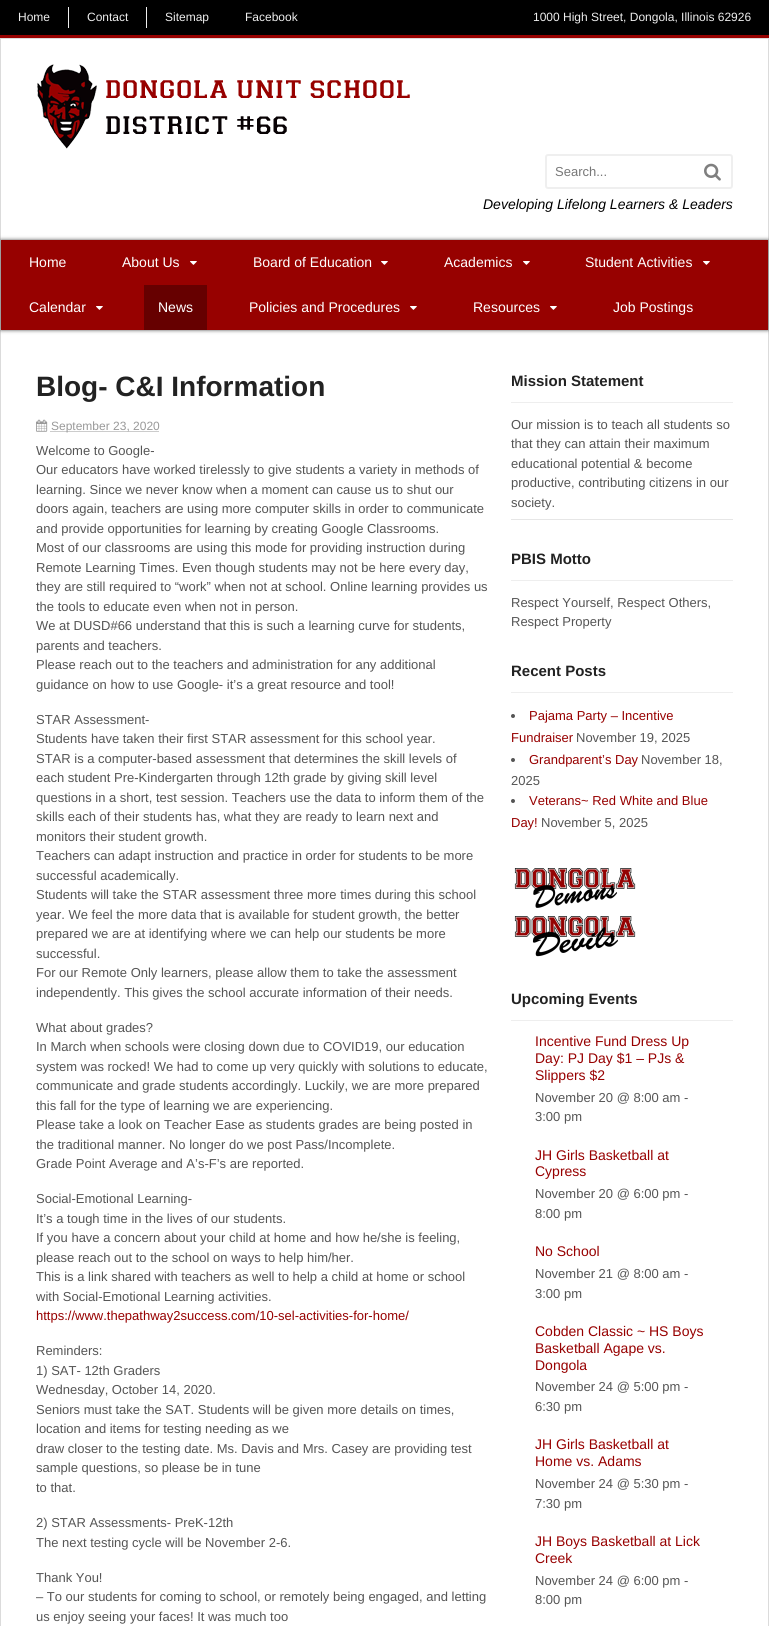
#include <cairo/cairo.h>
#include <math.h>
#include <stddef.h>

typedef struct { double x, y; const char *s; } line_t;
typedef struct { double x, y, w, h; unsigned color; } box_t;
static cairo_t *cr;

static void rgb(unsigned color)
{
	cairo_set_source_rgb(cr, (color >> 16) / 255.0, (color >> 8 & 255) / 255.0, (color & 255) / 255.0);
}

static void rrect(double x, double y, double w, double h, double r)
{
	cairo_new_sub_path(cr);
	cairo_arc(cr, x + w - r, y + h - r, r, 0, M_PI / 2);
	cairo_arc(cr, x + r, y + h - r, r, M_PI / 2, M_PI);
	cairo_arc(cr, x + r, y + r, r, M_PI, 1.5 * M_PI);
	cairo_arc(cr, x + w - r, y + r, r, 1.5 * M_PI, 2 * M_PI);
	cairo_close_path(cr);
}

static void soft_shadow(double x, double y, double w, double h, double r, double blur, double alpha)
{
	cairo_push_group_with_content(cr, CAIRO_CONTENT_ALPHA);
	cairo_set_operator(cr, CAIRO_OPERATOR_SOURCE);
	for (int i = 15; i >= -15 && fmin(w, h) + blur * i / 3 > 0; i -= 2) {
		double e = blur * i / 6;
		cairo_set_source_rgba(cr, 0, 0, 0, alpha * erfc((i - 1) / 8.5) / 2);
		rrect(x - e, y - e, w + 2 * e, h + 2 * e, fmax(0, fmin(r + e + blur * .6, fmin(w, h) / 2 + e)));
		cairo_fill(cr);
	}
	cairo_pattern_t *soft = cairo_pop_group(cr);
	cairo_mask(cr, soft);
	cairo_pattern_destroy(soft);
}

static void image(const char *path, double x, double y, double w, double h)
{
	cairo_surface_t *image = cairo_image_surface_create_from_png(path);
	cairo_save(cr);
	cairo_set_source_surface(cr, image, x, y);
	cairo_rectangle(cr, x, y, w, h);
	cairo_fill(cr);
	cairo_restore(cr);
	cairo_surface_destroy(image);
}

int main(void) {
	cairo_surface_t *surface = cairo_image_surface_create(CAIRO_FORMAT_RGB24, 769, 1626);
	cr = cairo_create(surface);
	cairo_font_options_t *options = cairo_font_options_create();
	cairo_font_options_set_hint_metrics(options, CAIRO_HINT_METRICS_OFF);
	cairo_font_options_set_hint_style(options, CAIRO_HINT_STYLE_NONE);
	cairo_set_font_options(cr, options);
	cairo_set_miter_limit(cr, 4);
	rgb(0x000000);
	cairo_paint(cr);
	{
		static const box_t items[] = {
			{0, 35, 769, 3, 0x970100},
			{68, 7, 1, 21, 0xeeeeee},
			{146, 7, 1, 21, 0xeeeeee},
		};
		for (size_t i = 0; i < sizeof items / sizeof *items; i++) {
			rgb(items[i].color);
			cairo_rectangle(cr, items[i].x, items[i].y, items[i].w, items[i].h);
			cairo_fill(cr);
		}
	}
	rgb(0xffffff);
	cairo_rectangle(cr, 0.5, 38.5, 768, 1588);
	cairo_fill_preserve(cr);
	rgb(0xdbdbdb);
	cairo_set_line_width(cr, 1);
	cairo_stroke(cr);
	image("img/1.png", 37, 64, 373, 85);
	rrect(546, 155, 186, 33, 2);
	rgb(0xefefef);
	cairo_set_line_width(cr, 2);
	cairo_stroke(cr);
	image("img/2.png", 704, 163, 17, 18);
	rgb(0x000000);
	soft_shadow(1, 240, 767, 90, 0, 2, 0.68);
	rgb(0x970100);
	cairo_rectangle(cr, 1, 240, 767, 90);
	cairo_fill(cr);
	image("img/3.png", 190, 261, 7, 4);
	image("img/3.png", 381, 261, 7, 4);
	image("img/3.png", 523, 261, 7, 4);
	image("img/3.png", 703, 261, 7, 4);
	image("img/3.png", 96, 306, 7, 4);
	rgb(0x660000);
	cairo_rectangle(cr, 144, 285, 63, 45);
	cairo_fill(cr);
	image("img/3.png", 410, 306, 7, 4);
	image("img/3.png", 550, 306, 7, 4);
	image("img/4.png", 36, 419, 12, 13);
	cairo_new_path(cr);
	cairo_move_to(cr, 50.5, 431.5);
	cairo_line_to(cr, 159, 431.5);
	rgb(0x999999);
	cairo_set_line_width(cr, 1);
	cairo_set_dash(cr, (double[]){1, 1}, 2, 0);
	cairo_stroke(cr);
	{
		static const box_t items[] = {
			{511, 402, 222, 1, 0xeeeeee},
			{511, 519, 222, 1, 0xe6e6e6},
			{511, 580, 222, 1, 0xeeeeee},
			{511, 692, 222, 1, 0xeeeeee},
		};
		for (size_t i = 0; i < sizeof items / sizeof *items; i++) {
			rgb(items[i].color);
			cairo_rectangle(cr, items[i].x, items[i].y, items[i].w, items[i].h);
			cairo_fill(cr);
		}
	}
	rgb(0x555555);
	cairo_arc(cr, 513, 716, 2, 0, 2 * M_PI);
	cairo_fill(cr);
	cairo_arc(cr, 513, 760, 2, 0, 2 * M_PI);
	cairo_fill(cr);
	cairo_arc(cr, 513, 801, 2, 0, 2 * M_PI);
	cairo_fill(cr);
	image("img/5.png", 514, 868, 122, 40);
	image("img/6.png", 514, 916, 122, 41);
	rgb(0xeeeeee);
	cairo_rectangle(cr, 511, 1020, 222, 1);
	cairo_fill(cr);
	cairo_select_font_face(cr, "Liberation Sans", CAIRO_FONT_SLANT_NORMAL, CAIRO_FONT_WEIGHT_NORMAL);
	cairo_set_font_size(cr, 12);
	{
		static const line_t items[] = {
			{18, 21, "Home"},
			{87, 21, "Contact"},
			{165, 21, "Sitemap"},
			{245, 21, "Facebook"},
			{533, 21, "1000 High Street, Dongola, Illinois 62926"},
		};
		for (size_t i = 0; i < sizeof items / sizeof *items; i++) {
			cairo_move_to(cr, items[i].x, items[i].y);
			cairo_show_text(cr, items[i].s);
		}
	}
	cairo_set_font_size(cr, 13);
	rgb(0x777777);
	cairo_move_to(cr, 555, 176);
	cairo_show_text(cr, "Search...");
	cairo_select_font_face(cr, "Liberation Sans", CAIRO_FONT_SLANT_ITALIC, CAIRO_FONT_WEIGHT_NORMAL);
	cairo_set_font_size(cr, 14);
	rgb(0x000000);
	cairo_move_to(cr, 483, 209);
	cairo_show_text(cr, "Developing Lifelong Learners & Leaders");
	cairo_select_font_face(cr, "Liberation Sans", CAIRO_FONT_SLANT_NORMAL, CAIRO_FONT_WEIGHT_NORMAL);
	rgb(0xffffff);
	{
		static const line_t items[] = {
			{29, 267, "Home"},
			{122, 267, "About Us"},
			{253, 267, "Board of Education"},
			{444, 267, "Academics"},
			{585, 267, "Student Activities"},
			{29, 312, "Calendar"},
			{158, 312, "News"},
			{249, 312, "Policies and Procedures"},
			{473, 312, "Resources"},
			{613, 312, "Job Postings"},
		};
		for (size_t i = 0; i < sizeof items / sizeof *items; i++) {
			cairo_move_to(cr, items[i].x, items[i].y);
			cairo_show_text(cr, items[i].s);
		}
	}
	cairo_select_font_face(cr, "Liberation Sans", CAIRO_FONT_SLANT_NORMAL, CAIRO_FONT_WEIGHT_BOLD);
	cairo_set_font_size(cr, 28);
	rgb(0x222222);
	cairo_move_to(cr, 36, 396);
	cairo_show_text(cr, "Blog- C&I Information");
	cairo_select_font_face(cr, "Liberation Sans", CAIRO_FONT_SLANT_NORMAL, CAIRO_FONT_WEIGHT_NORMAL);
	cairo_set_font_size(cr, 12);
	rgb(0x999999);
	cairo_move_to(cr, 51, 430);
	cairo_show_text(cr, "September 23, 2020");
	cairo_set_font_size(cr, 13);
	rgb(0x555555);
	{
		static const line_t items[] = {
			{36, 455, "Welcome to Google-"},
			{36, 474, "Our educators have worked tirelessly to give students a variety in methods of"},
			{36, 494, "learning. Since we never know when a moment can cause us to shut our"},
			{36, 513, "doors again, teachers are using more computer skills in order to communicate"},
			{36, 533, "and provide opportunities for learning by creating Google Classrooms."},
			{36, 552, "Most of our classrooms are using this mode for providing instruction during"},
			{36, 572, "Remote Learning Times. Even though students may not be here every day,"},
			{36, 591, "they are still required to “work” when not at school. Online learning provides us"},
			{36, 611, "the tools to educate even when not in person."},
			{36, 630, "We at DUSD#66 understand that this is such a learning curve for students,"},
			{36, 650, "parents and teachers."},
			{36, 669, "Please reach out to the teachers and administration for any additional"},
			{36, 689, "guidance on how to use Google- it’s a great resource and tool!"},
			{36, 724, "STAR Assessment-"},
			{36, 743, "Students have taken their first STAR assessment for this school year."},
			{36, 763, "STAR is a computer-based assessment that determines the skill levels of"},
			{36, 782, "each student Pre-Kindergarten through 12th grade by giving skill level"},
			{36, 802, "questions in a short, test session. Teachers use the data to inform them of the"},
			{36, 821, "skills each of their students has, what they are ready to learn next and"},
			{36, 841, "monitors their student growth."},
			{36, 860, "Teachers can adapt instruction and practice in order for students to be more"},
			{36, 880, "successful academically."},
			{36, 899, "Students will take the STAR assessment three more times during this school"},
			{36, 919, "year. We feel the more data that is available for student growth, the better"},
			{36, 938, "prepared we are at identifying where we can help our students be more"},
			{36, 958, "successful."},
			{36, 977, "For our Remote Only learners, please allow them to take the assessment"},
			{36, 997, "independently. This gives the school accurate information of their needs."},
			{36, 1032, "What about grades?"},
			{36, 1051, "In March when schools were closing down due to COVID19, our education"},
			{36, 1071, "system was rocked! We had to come up very quickly with solutions to educate,"},
			{36, 1090, "communicate and grade students accordingly. Luckily, we are more prepared"},
			{36, 1110, "this fall for the type of learning we are experiencing."},
			{36, 1129, "Please take a look on Teacher Ease as students grades are being posted in"},
			{36, 1149, "the traditional manner. No longer do we post Pass/Incomplete."},
			{36, 1168, "Grade Point Average and A’s-F’s are reported."},
			{36, 1203, "Social-Emotional Learning-"},
			{36, 1223, "It’s a tough time in the lives of our students."},
			{36, 1242, "If you have a concern about your child at home and how he/she is feeling,"},
			{36, 1262, "please reach out to the school on ways to help him/her."},
			{36, 1281, "This is a link shared with teachers as well to help a child at home or school"},
			{36, 1301, "with Social-Emotional Learning activities."},
		};
		for (size_t i = 0; i < sizeof items / sizeof *items; i++) {
			cairo_move_to(cr, items[i].x, items[i].y);
			cairo_show_text(cr, items[i].s);
		}
	}
	rgb(0x970000);
	cairo_move_to(cr, 36, 1320);
	cairo_show_text(cr, "https://www.thepathway2success.com/10-sel-activities-for-home/");
	rgb(0x555555);
	{
		static const line_t items[] = {
			{36, 1355, "Reminders:"},
			{36, 1375, "1) SAT- 12th Graders"},
			{36, 1394, "Wednesday, October 14, 2020."},
			{36, 1414, "Seniors must take the SAT. Students will be given more details on times,"},
			{36, 1433, "location and items for testing needing as we"},
			{36, 1453, "draw closer to the testing date. Ms. Davis and Mrs. Casey are providing test"},
			{36, 1472, "sample questions, so please be in tune"},
			{36, 1492, "to that."},
			{36, 1527, "2) STAR Assessments- PreK-12th"},
			{36, 1547, "The next testing cycle will be November 2-6."},
			{36, 1582, "Thank You!"},
			{36, 1601, "– To our students for coming to school, or remotely being engaged, and letting"},
			{36, 1621, "us enjoy seeing your faces! It was much too"},
		};
		for (size_t i = 0; i < sizeof items / sizeof *items; i++) {
			cairo_move_to(cr, items[i].x, items[i].y);
			cairo_show_text(cr, items[i].s);
		}
	}
	cairo_select_font_face(cr, "Liberation Sans", CAIRO_FONT_SLANT_NORMAL, CAIRO_FONT_WEIGHT_BOLD);
	cairo_set_font_size(cr, 15);
	rgb(0x222222);
	cairo_move_to(cr, 511, 386);
	cairo_show_text(cr, "Mission Statement");
	cairo_select_font_face(cr, "Liberation Sans", CAIRO_FONT_SLANT_NORMAL, CAIRO_FONT_WEIGHT_NORMAL);
	cairo_set_font_size(cr, 13);
	rgb(0x555555);
	{
		static const line_t items[] = {
			{511, 429, "Our mission is to teach all students so"},
			{511, 448, "that they can attain their maximum"},
			{511, 468, "educational potential & become"},
			{511, 487, "productive, contributing citizens in our"},
			{511, 507, "society."},
		};
		for (size_t i = 0; i < sizeof items / sizeof *items; i++) {
			cairo_move_to(cr, items[i].x, items[i].y);
			cairo_show_text(cr, items[i].s);
		}
	}
	cairo_select_font_face(cr, "Liberation Sans", CAIRO_FONT_SLANT_NORMAL, CAIRO_FONT_WEIGHT_BOLD);
	cairo_set_font_size(cr, 15);
	rgb(0x222222);
	cairo_move_to(cr, 511, 564);
	cairo_show_text(cr, "PBIS Motto");
	cairo_select_font_face(cr, "Liberation Sans", CAIRO_FONT_SLANT_NORMAL, CAIRO_FONT_WEIGHT_NORMAL);
	cairo_set_font_size(cr, 13);
	rgb(0x555555);
	cairo_move_to(cr, 511, 607);
	cairo_show_text(cr, "Respect Yourself, Respect Others,");
	cairo_move_to(cr, 511, 626);
	cairo_show_text(cr, "Respect Property");
	cairo_select_font_face(cr, "Liberation Sans", CAIRO_FONT_SLANT_NORMAL, CAIRO_FONT_WEIGHT_BOLD);
	cairo_set_font_size(cr, 15);
	rgb(0x222222);
	cairo_move_to(cr, 511, 676);
	cairo_show_text(cr, "Recent Posts");
	cairo_select_font_face(cr, "Liberation Sans", CAIRO_FONT_SLANT_NORMAL, CAIRO_FONT_WEIGHT_NORMAL);
	cairo_set_font_size(cr, 13);
	rgb(0x970000);
	cairo_move_to(cr, 529, 720);
	cairo_show_text(cr, "Pajama Party – Incentive");
	cairo_move_to(cr, 511, 742);
	cairo_show_text(cr, "Fundraiser");
	rgb(0x555555);
	cairo_move_to(cr, 576, 742);
	cairo_show_text(cr, "November 19, 2025");
	rgb(0x970000);
	cairo_move_to(cr, 529, 764);
	cairo_show_text(cr, "Grandparent’s Day");
	rgb(0x555555);
	cairo_move_to(cr, 641, 764);
	cairo_show_text(cr, "November 18,");
	cairo_move_to(cr, 511, 785);
	cairo_show_text(cr, "2025");
	rgb(0x970000);
	cairo_move_to(cr, 529, 805);
	cairo_show_text(cr, "Veterans~ Red White and Blue");
	cairo_move_to(cr, 511, 827);
	cairo_show_text(cr, "Day!");
	rgb(0x555555);
	cairo_move_to(cr, 541, 827);
	cairo_show_text(cr, "November 5, 2025");
	cairo_select_font_face(cr, "Liberation Sans", CAIRO_FONT_SLANT_NORMAL, CAIRO_FONT_WEIGHT_BOLD);
	cairo_set_font_size(cr, 15);
	rgb(0x222222);
	cairo_move_to(cr, 511, 1004);
	cairo_show_text(cr, "Upcoming Events");
	cairo_select_font_face(cr, "Liberation Sans", CAIRO_FONT_SLANT_NORMAL, CAIRO_FONT_WEIGHT_NORMAL);
	cairo_set_font_size(cr, 14);
	rgb(0x970000);
	{
		static const line_t items[] = {
			{535, 1046, "Incentive Fund Dress Up"},
			{535, 1063, "Day: PJ Day $1 – PJs &"},
			{535, 1080, "Slippers $2"},
		};
		for (size_t i = 0; i < sizeof items / sizeof *items; i++) {
			cairo_move_to(cr, items[i].x, items[i].y);
			cairo_show_text(cr, items[i].s);
		}
	}
	cairo_set_font_size(cr, 13);
	rgb(0x555555);
	cairo_move_to(cr, 535, 1102);
	cairo_show_text(cr, "November 20 @ 8:00 am -");
	cairo_move_to(cr, 535, 1121);
	cairo_show_text(cr, "3:00 pm");
	cairo_set_font_size(cr, 14);
	rgb(0x970000);
	cairo_move_to(cr, 535, 1160);
	cairo_show_text(cr, "JH Girls Basketball at");
	cairo_move_to(cr, 535, 1176);
	cairo_show_text(cr, "Cypress");
	cairo_set_font_size(cr, 13);
	rgb(0x555555);
	cairo_move_to(cr, 535, 1198);
	cairo_show_text(cr, "November 20 @ 6:00 pm -");
	cairo_move_to(cr, 535, 1218);
	cairo_show_text(cr, "8:00 pm");
	cairo_set_font_size(cr, 14);
	rgb(0x970000);
	cairo_move_to(cr, 535, 1256);
	cairo_show_text(cr, "No School");
	cairo_set_font_size(cr, 13);
	rgb(0x555555);
	cairo_move_to(cr, 535, 1278);
	cairo_show_text(cr, "November 21 @ 8:00 am -");
	cairo_move_to(cr, 535, 1298);
	cairo_show_text(cr, "3:00 pm");
	cairo_set_font_size(cr, 14);
	rgb(0x970000);
	{
		static const line_t items[] = {
			{535, 1336, "Cobden Classic ~ HS Boys"},
			{535, 1353, "Basketball Agape vs."},
			{535, 1370, "Dongola"},
		};
		for (size_t i = 0; i < sizeof items / sizeof *items; i++) {
			cairo_move_to(cr, items[i].x, items[i].y);
			cairo_show_text(cr, items[i].s);
		}
	}
	cairo_set_font_size(cr, 13);
	rgb(0x555555);
	cairo_move_to(cr, 535, 1391);
	cairo_show_text(cr, "November 24 @ 5:00 pm -");
	cairo_move_to(cr, 535, 1411);
	cairo_show_text(cr, "6:30 pm");
	cairo_set_font_size(cr, 14);
	rgb(0x970000);
	cairo_move_to(cr, 535, 1449);
	cairo_show_text(cr, "JH Girls Basketball at");
	cairo_move_to(cr, 535, 1466);
	cairo_show_text(cr, "Home vs. Adams");
	cairo_set_font_size(cr, 13);
	rgb(0x555555);
	cairo_move_to(cr, 535, 1488);
	cairo_show_text(cr, "November 24 @ 5:30 pm -");
	cairo_move_to(cr, 535, 1508);
	cairo_show_text(cr, "7:30 pm");
	cairo_set_font_size(cr, 14);
	rgb(0x970000);
	cairo_move_to(cr, 535, 1546);
	cairo_show_text(cr, "JH Boys Basketball at Lick");
	cairo_move_to(cr, 535, 1563);
	cairo_show_text(cr, "Creek");
	cairo_set_font_size(cr, 13);
	rgb(0x555555);
	cairo_move_to(cr, 535, 1585);
	cairo_show_text(cr, "November 24 @ 6:00 pm -");
	cairo_move_to(cr, 535, 1604);
	cairo_show_text(cr, "8:00 pm");
	cairo_surface_write_to_png(surface, "page.png");
	cairo_font_options_destroy(options);
	cairo_destroy(cr);
	cairo_surface_destroy(surface);
	return 0;
}
